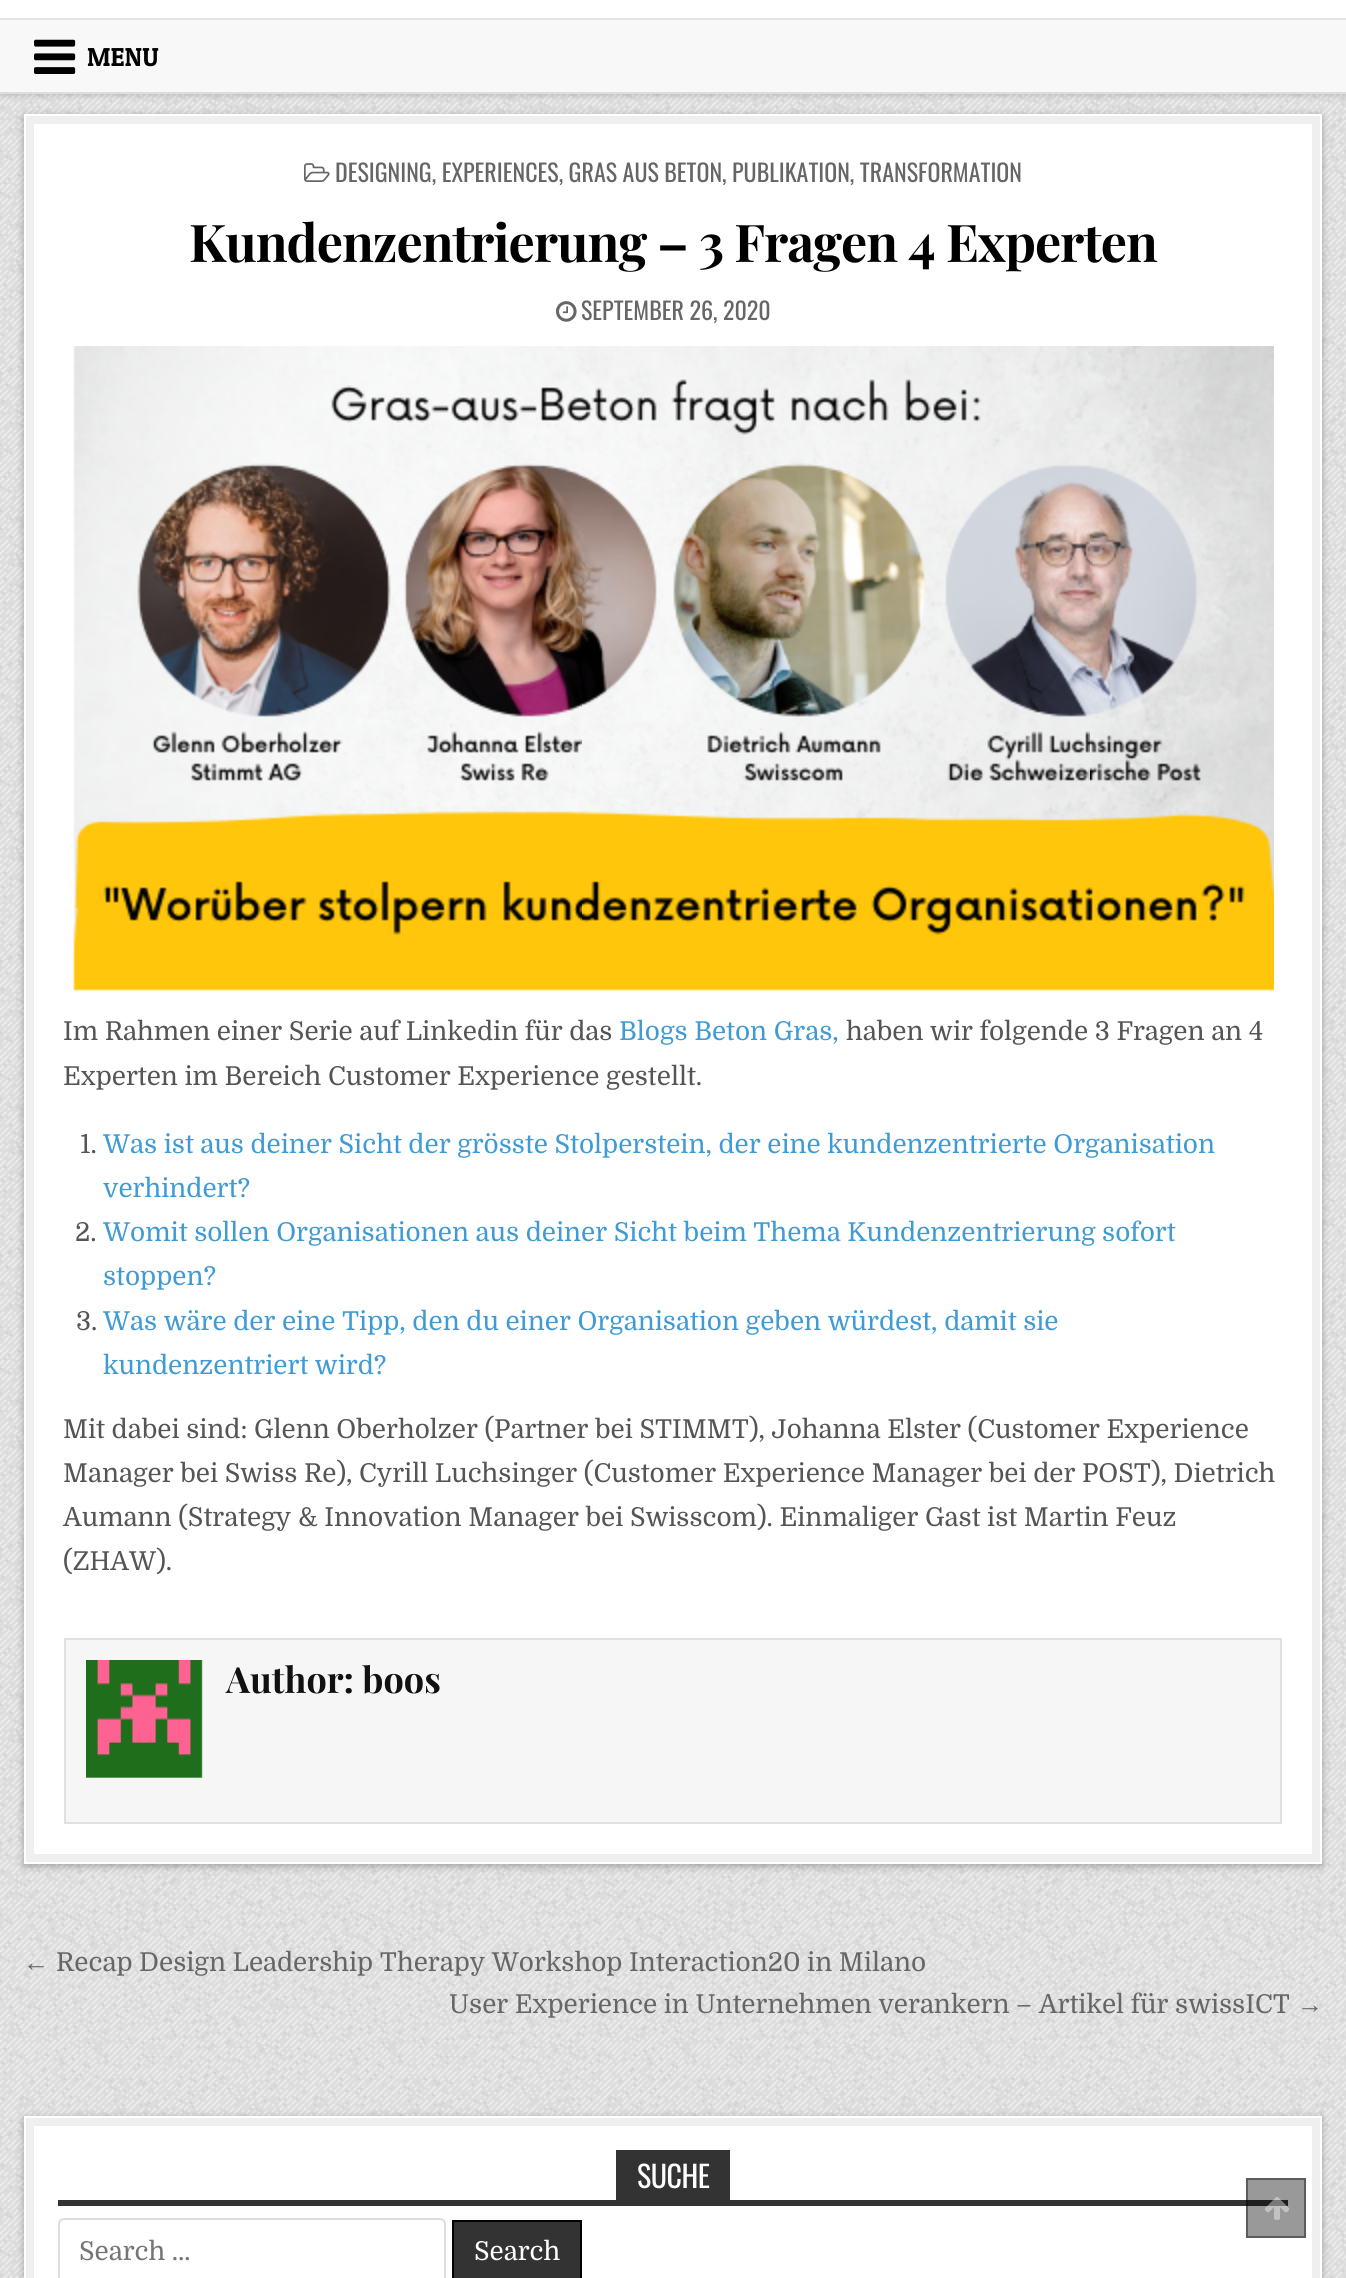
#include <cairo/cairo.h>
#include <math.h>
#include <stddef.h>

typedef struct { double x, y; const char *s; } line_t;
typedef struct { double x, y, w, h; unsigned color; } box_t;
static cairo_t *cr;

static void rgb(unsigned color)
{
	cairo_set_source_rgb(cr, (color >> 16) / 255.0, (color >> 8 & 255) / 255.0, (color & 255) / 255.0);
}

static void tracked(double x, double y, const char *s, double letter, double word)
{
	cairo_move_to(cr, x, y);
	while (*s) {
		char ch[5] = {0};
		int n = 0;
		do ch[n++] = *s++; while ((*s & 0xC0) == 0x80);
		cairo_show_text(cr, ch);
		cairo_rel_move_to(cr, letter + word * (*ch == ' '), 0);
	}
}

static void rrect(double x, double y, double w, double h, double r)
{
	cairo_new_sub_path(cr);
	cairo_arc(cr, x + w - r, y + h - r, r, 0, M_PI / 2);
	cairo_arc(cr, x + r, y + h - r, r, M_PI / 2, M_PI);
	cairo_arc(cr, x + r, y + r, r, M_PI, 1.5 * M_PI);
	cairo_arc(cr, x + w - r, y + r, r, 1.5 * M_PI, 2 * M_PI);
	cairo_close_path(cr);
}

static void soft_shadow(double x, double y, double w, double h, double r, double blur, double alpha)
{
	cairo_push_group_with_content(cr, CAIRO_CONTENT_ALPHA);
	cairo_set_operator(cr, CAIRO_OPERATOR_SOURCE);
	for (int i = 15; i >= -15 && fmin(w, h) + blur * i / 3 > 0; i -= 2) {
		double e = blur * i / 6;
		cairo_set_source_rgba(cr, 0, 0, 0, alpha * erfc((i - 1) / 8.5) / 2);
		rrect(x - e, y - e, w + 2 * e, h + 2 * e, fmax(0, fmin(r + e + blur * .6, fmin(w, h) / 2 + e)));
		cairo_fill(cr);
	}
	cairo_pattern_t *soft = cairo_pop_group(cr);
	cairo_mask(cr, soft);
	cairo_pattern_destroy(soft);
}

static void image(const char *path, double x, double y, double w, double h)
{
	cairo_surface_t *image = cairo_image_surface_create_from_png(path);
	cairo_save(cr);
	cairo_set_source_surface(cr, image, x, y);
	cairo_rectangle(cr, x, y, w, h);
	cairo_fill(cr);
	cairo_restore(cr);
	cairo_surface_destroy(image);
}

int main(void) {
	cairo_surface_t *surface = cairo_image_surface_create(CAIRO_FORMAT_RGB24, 1346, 2278);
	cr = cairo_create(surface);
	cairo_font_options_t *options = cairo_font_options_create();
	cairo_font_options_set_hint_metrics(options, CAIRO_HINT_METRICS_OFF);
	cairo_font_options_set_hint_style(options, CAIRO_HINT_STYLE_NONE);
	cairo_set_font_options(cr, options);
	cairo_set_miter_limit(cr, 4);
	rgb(0xffffff);
	cairo_paint(cr);
	image("img/1.png", 0, 94, 1346, 2184);
	rgb(0x000000);
	soft_shadow(0, 20, 1346, 76, 0, 3, 0.15);
	{
		static const box_t items[] = {
			{0, 16, 1346, 2, 0xffffff},
			{0, 20, 1346, 72, 0xf8f8f8},
			{0, 18, 1346, 2, 0xe5e5e5},
			{0, 92, 1346, 2, 0xdddddd},
		};
		for (size_t i = 0; i < sizeof items / sizeof *items; i++) {
			rgb(items[i].color);
			cairo_rectangle(cr, items[i].x, items[i].y, items[i].w, items[i].h);
			cairo_fill(cr);
		}
	}
	image("img/2.png", 34, 39, 42, 35);
	rgb(0x000000);
	soft_shadow(24, 116, 1298, 1750, 0, 4, 0.3);
	rgb(0xffffff);
	cairo_rectangle(cr, 24, 114, 1298, 1750);
	cairo_fill(cr);
	cairo_rectangle(cr, 30, 120, 1286, 1738);
	rgb(0xefefef);
	cairo_set_line_width(cr, 8);
	cairo_stroke(cr);
	image("img/3.png", 304, 163, 26, 19);
	image("img/4.png", 556, 301, 21, 21);
	image("img/5.png", 73, 346, 1201, 645);
	rgb(0xf6f6f6);
	cairo_rectangle(cr, 65, 1639, 1216, 184);
	cairo_fill_preserve(cr);
	rgb(0xe0e0e0);
	cairo_set_line_width(cr, 2);
	cairo_stroke(cr);
	image("img/6.png", 86, 1660, 117, 118);
	rgb(0x000000);
	soft_shadow(24, 2118, 1298, 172, 0, 4, 0.3);
	rgb(0xffffff);
	cairo_rectangle(cr, 24, 2116, 1298, 162);
	cairo_fill(cr);
	cairo_rectangle(cr, 30, 2122, 1286, 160);
	rgb(0xefefef);
	cairo_set_line_width(cr, 8);
	cairo_stroke(cr);
	rgb(0x333333);
	cairo_rectangle(cr, 58, 2200, 1230, 6);
	cairo_fill(cr);
	cairo_rectangle(cr, 616, 2150, 114, 50);
	cairo_fill(cr);
	rrect(59, 2219, 386, 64, 5);
	rgb(0xdddddd);
	cairo_set_line_width(cr, 2);
	cairo_stroke(cr);
	rgb(0x333333);
	cairo_rectangle(cr, 453, 2221, 128, 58);
	cairo_fill_preserve(cr);
	rgb(0x000000);
	cairo_stroke(cr);
	cairo_set_source_rgba(cr, 0, 0, 0, 0.4);
	cairo_rectangle(cr, 1246, 2178, 60, 60);
	cairo_fill(cr);
	cairo_rectangle(cr, 1247, 2179, 58, 58);
	cairo_stroke(cr);
	image("img/7.png", 1265, 2197, 24, 23);
	cairo_select_font_face(cr, "Patua One", CAIRO_FONT_SLANT_NORMAL, CAIRO_FONT_WEIGHT_NORMAL);
	cairo_set_font_size(cr, 26);
	rgb(0x000000);
	cairo_move_to(cr, 87, 66);
	cairo_show_text(cr, "MENU");
	cairo_select_font_face(cr, "Oswald", CAIRO_FONT_SLANT_NORMAL, CAIRO_FONT_WEIGHT_NORMAL);
	cairo_set_font_size(cr, 24);
	rgb(0x666666);
	cairo_move_to(cr, 335, 182);
	cairo_show_text(cr, "DESIGNING, EXPERIENCES, GRAS AUS BETON, PUBLIKATION, TRANSFORMATION");
	cairo_select_font_face(cr, "Playfair Display", CAIRO_FONT_SLANT_NORMAL, CAIRO_FONT_WEIGHT_BOLD);
	cairo_set_font_size(cr, 52);
	rgb(0x000000);
	tracked(189, 262, "Kundenzentrierung – 3 Fragen 4 Experten", -1, 0);
	cairo_select_font_face(cr, "Oswald", CAIRO_FONT_SLANT_NORMAL, CAIRO_FONT_WEIGHT_NORMAL);
	cairo_set_font_size(cr, 24);
	rgb(0x666666);
	cairo_move_to(cr, 581, 320);
	cairo_show_text(cr, "SEPTEMBER 26, 2020");
	cairo_select_font_face(cr, "Domine", CAIRO_FONT_SLANT_NORMAL, CAIRO_FONT_WEIGHT_NORMAL);
	cairo_set_font_size(cr, 26);
	rgb(0x555555);
	cairo_move_to(cr, 63, 1040);
	cairo_show_text(cr, "Im Rahmen einer Serie auf Linkedin für das");
	rgb(0x409bd4);
	cairo_move_to(cr, 619, 1040);
	cairo_show_text(cr, "Blogs Beton Gras,");
	rgb(0x555555);
	{
		static const line_t items[] = {
			{846, 1040, "haben wir folgende 3 Fragen an 4"},
			{63, 1085, "Experten im Bereich Customer Experience gestellt."},
			{80, 1153, "1."},
		};
		for (size_t i = 0; i < sizeof items / sizeof *items; i++) {
			cairo_move_to(cr, items[i].x, items[i].y);
			cairo_show_text(cr, items[i].s);
		}
	}
	rgb(0x409bd4);
	cairo_move_to(cr, 103, 1153);
	cairo_show_text(cr, "Was ist aus deiner Sicht der grösste Stolperstein, der eine kundenzentrierte Organisation");
	cairo_move_to(cr, 103, 1197);
	cairo_show_text(cr, "verhindert?");
	rgb(0x555555);
	cairo_move_to(cr, 75, 1241);
	cairo_show_text(cr, "2.");
	rgb(0x409bd4);
	cairo_move_to(cr, 103, 1241);
	cairo_show_text(cr, "Womit sollen Organisationen aus deiner Sicht beim Thema Kundenzentrierung sofort");
	cairo_move_to(cr, 103, 1285);
	cairo_show_text(cr, "stoppen?");
	rgb(0x555555);
	cairo_move_to(cr, 76, 1330);
	cairo_show_text(cr, "3.");
	rgb(0x409bd4);
	cairo_move_to(cr, 103, 1330);
	cairo_show_text(cr, "Was wäre der eine Tipp, den du einer Organisation geben würdest, damit sie");
	cairo_move_to(cr, 103, 1374);
	cairo_show_text(cr, "kundenzentriert wird?");
	rgb(0x555555);
	{
		static const line_t items[] = {
			{63, 1438, "Mit dabei sind: Glenn Oberholzer (Partner bei STIMMT), Johanna Elster (Customer Experience"},
			{63, 1482, "Manager bei Swiss Re), Cyrill Luchsinger (Customer Experience Manager bei der POST), Dietrich"},
			{63, 1526, "Aumann (Strategy & Innovation Manager bei Swisscom). Einmaliger Gast ist Martin Feuz"},
			{63, 1570, "(ZHAW)."},
		};
		for (size_t i = 0; i < sizeof items / sizeof *items; i++) {
			cairo_move_to(cr, items[i].x, items[i].y);
			cairo_show_text(cr, items[i].s);
		}
	}
	cairo_select_font_face(cr, "Playfair Display", CAIRO_FONT_SLANT_NORMAL, CAIRO_FONT_WEIGHT_BOLD);
	cairo_set_font_size(cr, 36);
	rgb(0x111111);
	cairo_move_to(cr, 226, 1693);
	cairo_show_text(cr, "Author: boos");
	cairo_select_font_face(cr, "Liberation Sans", CAIRO_FONT_SLANT_NORMAL, CAIRO_FONT_WEIGHT_NORMAL);
	cairo_set_font_size(cr, 26);
	rgb(0x666666);
	cairo_move_to(cr, 23, 1971);
	cairo_show_text(cr, "←");
	cairo_select_font_face(cr, "Domine", CAIRO_FONT_SLANT_NORMAL, CAIRO_FONT_WEIGHT_NORMAL);
	cairo_move_to(cr, 56, 1971);
	cairo_show_text(cr, "Recap Design Leadership Therapy Workshop Interaction20 in Milano");
	cairo_move_to(cr, 449, 2013);
	cairo_show_text(cr, "User Experience in Unternehmen verankern – Artikel für swissICT");
	cairo_select_font_face(cr, "Liberation Sans", CAIRO_FONT_SLANT_NORMAL, CAIRO_FONT_WEIGHT_NORMAL);
	cairo_move_to(cr, 1297, 2013);
	cairo_show_text(cr, "→");
	cairo_select_font_face(cr, "Oswald", CAIRO_FONT_SLANT_NORMAL, CAIRO_FONT_WEIGHT_NORMAL);
	cairo_set_font_size(cr, 30);
	rgb(0xffffff);
	tracked(637, 2188, "SUCHE", -0.5, 0);
	cairo_select_font_face(cr, "Domine", CAIRO_FONT_SLANT_NORMAL, CAIRO_FONT_WEIGHT_NORMAL);
	cairo_set_font_size(cr, 26);
	rgb(0x757575);
	cairo_move_to(cr, 79, 2260);
	cairo_show_text(cr, "Search …");
	rgb(0xffffff);
	cairo_move_to(cr, 474, 2260);
	cairo_show_text(cr, "Search");
	cairo_surface_write_to_png(surface, "page.png");
	cairo_font_options_destroy(options);
	cairo_destroy(cr);
	cairo_surface_destroy(surface);
	return 0;
}
